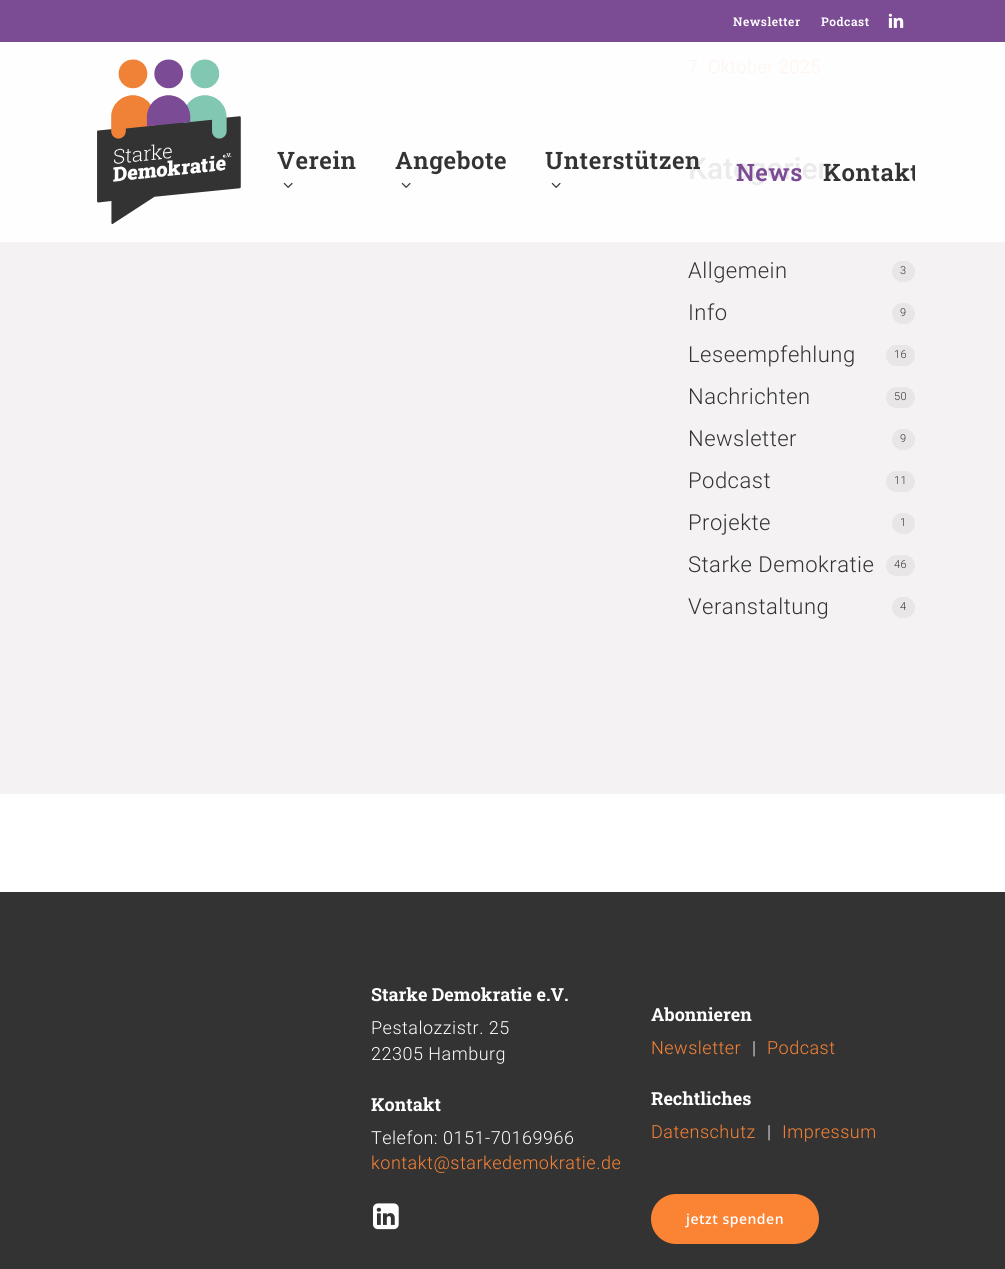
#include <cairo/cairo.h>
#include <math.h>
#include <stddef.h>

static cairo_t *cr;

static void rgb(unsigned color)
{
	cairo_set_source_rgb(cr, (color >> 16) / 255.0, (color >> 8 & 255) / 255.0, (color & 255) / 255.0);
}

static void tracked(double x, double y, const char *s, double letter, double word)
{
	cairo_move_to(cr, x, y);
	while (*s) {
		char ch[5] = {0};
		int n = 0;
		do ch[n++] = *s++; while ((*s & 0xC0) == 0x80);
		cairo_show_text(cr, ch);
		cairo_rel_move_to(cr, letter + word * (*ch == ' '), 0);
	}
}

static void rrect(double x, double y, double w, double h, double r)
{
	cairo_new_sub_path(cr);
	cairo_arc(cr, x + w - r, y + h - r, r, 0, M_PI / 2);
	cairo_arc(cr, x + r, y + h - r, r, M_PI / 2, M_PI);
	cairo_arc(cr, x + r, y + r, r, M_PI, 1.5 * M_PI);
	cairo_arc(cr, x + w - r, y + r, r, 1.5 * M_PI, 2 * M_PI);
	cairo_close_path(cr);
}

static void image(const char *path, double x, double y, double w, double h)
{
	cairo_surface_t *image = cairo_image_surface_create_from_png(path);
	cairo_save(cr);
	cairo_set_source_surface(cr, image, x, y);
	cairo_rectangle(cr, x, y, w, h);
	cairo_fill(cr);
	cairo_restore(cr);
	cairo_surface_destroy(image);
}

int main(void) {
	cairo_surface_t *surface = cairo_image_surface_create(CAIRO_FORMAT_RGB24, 1005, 1269);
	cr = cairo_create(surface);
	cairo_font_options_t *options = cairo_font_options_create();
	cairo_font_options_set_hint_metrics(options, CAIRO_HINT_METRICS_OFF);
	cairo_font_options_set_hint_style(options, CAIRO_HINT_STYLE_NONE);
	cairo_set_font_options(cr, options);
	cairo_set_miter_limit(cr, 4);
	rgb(0xf4f2f2);
	cairo_paint(cr);
	rgb(0xfefefe);
	cairo_rectangle(cr, 0, 42, 1005, 200);
	cairo_fill(cr);
	rgb(0x7b4b94);
	cairo_rectangle(cr, 0, 0, 1005, 42);
	cairo_fill(cr);
	image("img/1.png", 888, 13, 16, 15);
	image("img/2.png", 97, 59, 144, 165);
	image("img/3.png", 283, 182, 10, 6);
	image("img/3.png", 401, 182, 10, 6);
	image("img/3.png", 551, 182, 10, 6);
	rgb(0xe8e6e6);
	rrect(892, 261, 23, 21, 10.5);
	cairo_fill(cr);
	rrect(892, 303, 23, 21, 10.5);
	cairo_fill(cr);
	rrect(886, 345, 29, 21, 10.5);
	cairo_fill(cr);
	rrect(886, 387, 29, 21, 10.5);
	cairo_fill(cr);
	rrect(892, 429, 23, 21, 10.5);
	cairo_fill(cr);
	rrect(886, 471, 29, 21, 10.5);
	cairo_fill(cr);
	rrect(892, 513, 23, 21, 10.5);
	cairo_fill(cr);
	rrect(886, 555, 29, 21, 10.5);
	cairo_fill(cr);
	rrect(892, 597, 23, 21, 10.5);
	cairo_fill(cr);
	rgb(0xffffff);
	cairo_rectangle(cr, 0, 794, 1005, 98);
	cairo_fill(cr);
	rgb(0x333333);
	cairo_rectangle(cr, 0, 892, 1005, 377);
	cairo_fill(cr);
	image("img/4.png", 373, 1203, 26, 27);
	rgb(0xfa8334);
	rrect(651, 1194, 168, 50, 25);
	cairo_fill(cr);
	cairo_select_font_face(cr, "Roboto Slab SemiBold", CAIRO_FONT_SLANT_NORMAL, CAIRO_FONT_WEIGHT_NORMAL);
	cairo_set_font_size(cr, 12);
	rgb(0xffffff);
	tracked(733, 26, "Newsletter", 0.5, 0);
	tracked(821, 26, "Podcast", 0.5, 0);
	cairo_set_font_size(cr, 24);
	rgb(0x333333);
	tracked(277, 169, "Verein", 0.5, 0);
	tracked(395, 169, "Angebote", 0.5, 0);
	cairo_select_font_face(cr, "Roboto Light", CAIRO_FONT_SLANT_NORMAL, CAIRO_FONT_WEIGHT_NORMAL);
	cairo_set_font_size(cr, 18);
	rgb(0xfff3eb);
	tracked(688, 73, "7. Oktober 2025", 0.5, 0);
	cairo_select_font_face(cr, "Roboto Medium", CAIRO_FONT_SLANT_NORMAL, CAIRO_FONT_WEIGHT_NORMAL);
	cairo_set_font_size(cr, 30);
	rgb(0xebebeb);
	cairo_move_to(cr, 688, 179);
	cairo_show_text(cr, "Kategorien");
	cairo_save(cr);
	cairo_rectangle(cr, 811, 102, 104, 140);
	cairo_clip(cr);
	cairo_select_font_face(cr, "Roboto Slab SemiBold", CAIRO_FONT_SLANT_NORMAL, CAIRO_FONT_WEIGHT_NORMAL);
	cairo_set_font_size(cr, 24);
	rgb(0x333333);
	tracked(823, 181, "Kontakt", 0.5, 0);
	cairo_restore(cr);
	cairo_select_font_face(cr, "Roboto Slab SemiBold", CAIRO_FONT_SLANT_NORMAL, CAIRO_FONT_WEIGHT_NORMAL);
	cairo_set_font_size(cr, 24);
	rgb(0x7b4b94);
	tracked(736, 181, "News", 0.5, 0);
	rgb(0x333333);
	tracked(545, 169, "Unterstützen", 0.5, 0);
	cairo_select_font_face(cr, "Roboto Light", CAIRO_FONT_SLANT_NORMAL, CAIRO_FONT_WEIGHT_NORMAL);
	cairo_set_font_size(cr, 22);
	tracked(688, 278, "Allgemein", 0.5, 0);
	cairo_set_font_size(cr, 11);
	tracked(900, 274, "3", 0.5, 0);
	cairo_set_font_size(cr, 22);
	tracked(688, 320, "Info", 0.5, 0);
	cairo_set_font_size(cr, 11);
	tracked(900, 316, "9", 0.5, 0);
	cairo_set_font_size(cr, 22);
	tracked(688, 362, "Leseempfehlung", 0.5, 0);
	cairo_set_font_size(cr, 11);
	tracked(894, 358, "16", 0.5, 0);
	cairo_set_font_size(cr, 22);
	tracked(688, 404, "Nachrichten", 0.5, 0);
	cairo_set_font_size(cr, 11);
	tracked(894, 400, "50", 0.5, 0);
	cairo_set_font_size(cr, 22);
	tracked(688, 446, "Newsletter", 0.5, 0);
	cairo_set_font_size(cr, 11);
	tracked(900, 442, "9", 0.5, 0);
	cairo_set_font_size(cr, 22);
	tracked(688, 488, "Podcast", 0.5, 0);
	cairo_set_font_size(cr, 11);
	tracked(894, 484, "11", 0.5, 0);
	cairo_set_font_size(cr, 22);
	tracked(688, 530, "Projekte", 0.5, 0);
	cairo_set_font_size(cr, 11);
	tracked(900, 526, "1", 0.5, 0);
	cairo_set_font_size(cr, 22);
	tracked(688, 572, "Starke Demokratie", 0.5, 0);
	cairo_set_font_size(cr, 11);
	tracked(894, 568, "46", 0.5, 0);
	cairo_set_font_size(cr, 22);
	tracked(688, 614, "Veranstaltung", 0.5, 0);
	cairo_set_font_size(cr, 11);
	tracked(900, 610, "4", 0.5, 0);
	cairo_select_font_face(cr, "Roboto Slab", CAIRO_FONT_SLANT_NORMAL, CAIRO_FONT_WEIGHT_BOLD);
	cairo_set_font_size(cr, 18);
	rgb(0xffffff);
	cairo_move_to(cr, 371, 1001);
	cairo_show_text(cr, "Starke Demokratie e.V.");
	cairo_select_font_face(cr, "Roboto Light", CAIRO_FONT_SLANT_NORMAL, CAIRO_FONT_WEIGHT_NORMAL);
	tracked(371, 1034, "Pestalozzistr. 25", 0.5, 0);
	tracked(371, 1060, "22305 Hamburg", 0.5, 0);
	cairo_select_font_face(cr, "Roboto Slab", CAIRO_FONT_SLANT_NORMAL, CAIRO_FONT_WEIGHT_BOLD);
	cairo_move_to(cr, 371, 1111);
	cairo_show_text(cr, "Kontakt");
	cairo_select_font_face(cr, "Roboto Light", CAIRO_FONT_SLANT_NORMAL, CAIRO_FONT_WEIGHT_NORMAL);
	tracked(371, 1144, "Telefon: 0151-70169966", 0.5, 0);
	rgb(0xfa8334);
	tracked(371, 1169, "kontakt@starkedemokratie.de", 0.5, 0);
	cairo_select_font_face(cr, "Roboto Slab", CAIRO_FONT_SLANT_NORMAL, CAIRO_FONT_WEIGHT_BOLD);
	rgb(0xffffff);
	cairo_move_to(cr, 651, 1021);
	cairo_show_text(cr, "Abonnieren");
	cairo_select_font_face(cr, "Roboto Light", CAIRO_FONT_SLANT_NORMAL, CAIRO_FONT_WEIGHT_NORMAL);
	rgb(0xfa8334);
	tracked(651, 1054, "Newsletter", 0.5, 0);
	rgb(0xffffff);
	tracked(752, 1054, "|", 0.5, 0);
	rgb(0xfa8334);
	tracked(767, 1054, "Podcast", 0.5, 0);
	cairo_select_font_face(cr, "Roboto Slab", CAIRO_FONT_SLANT_NORMAL, CAIRO_FONT_WEIGHT_BOLD);
	rgb(0xffffff);
	cairo_move_to(cr, 651, 1105);
	cairo_show_text(cr, "Rechtliches");
	cairo_select_font_face(cr, "Roboto Light", CAIRO_FONT_SLANT_NORMAL, CAIRO_FONT_WEIGHT_NORMAL);
	rgb(0xfa8334);
	tracked(651, 1138, "Datenschutz", 0.5, 0);
	rgb(0xffffff);
	tracked(767, 1138, "|", 0.5, 0);
	rgb(0xfa8334);
	tracked(782, 1138, "Impressum", 0.5, 0);
	cairo_select_font_face(cr, "Open Sans SemiBold", CAIRO_FONT_SLANT_NORMAL, CAIRO_FONT_WEIGHT_NORMAL);
	cairo_set_font_size(cr, 14);
	rgb(0xffffff);
	tracked(686, 1224, "jetzt spenden", 0.5, 0);
	cairo_surface_write_to_png(surface, "page.png");
	cairo_font_options_destroy(options);
	cairo_destroy(cr);
	cairo_surface_destroy(surface);
	return 0;
}
